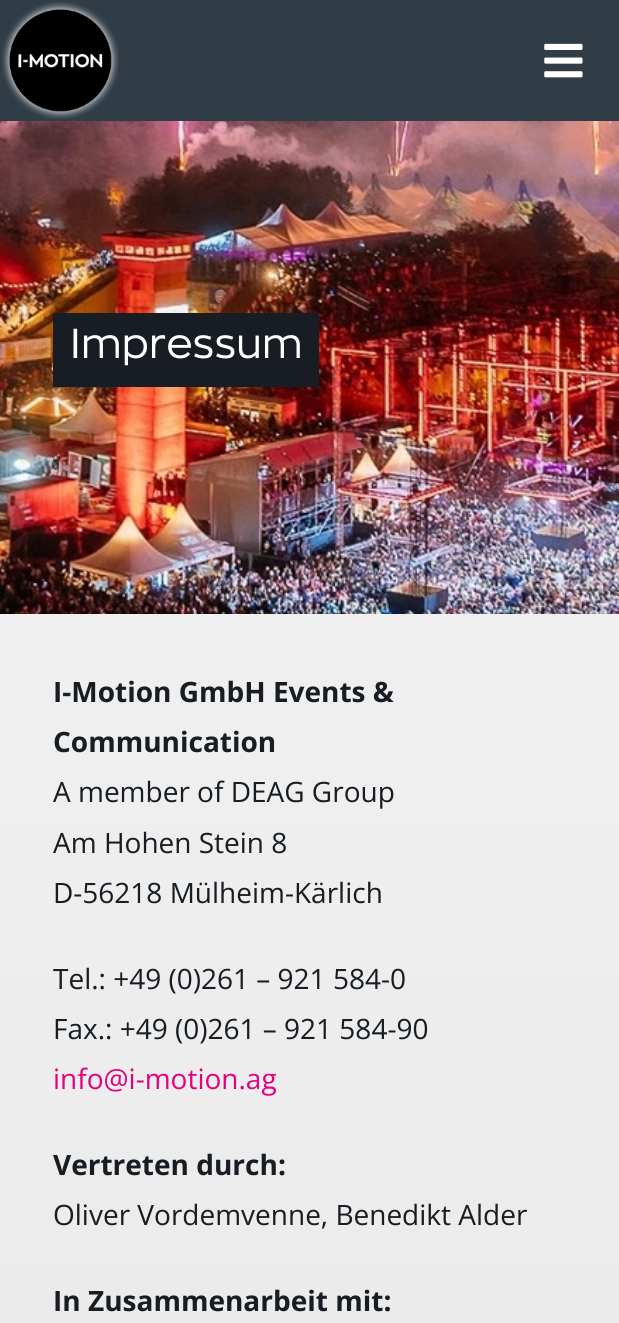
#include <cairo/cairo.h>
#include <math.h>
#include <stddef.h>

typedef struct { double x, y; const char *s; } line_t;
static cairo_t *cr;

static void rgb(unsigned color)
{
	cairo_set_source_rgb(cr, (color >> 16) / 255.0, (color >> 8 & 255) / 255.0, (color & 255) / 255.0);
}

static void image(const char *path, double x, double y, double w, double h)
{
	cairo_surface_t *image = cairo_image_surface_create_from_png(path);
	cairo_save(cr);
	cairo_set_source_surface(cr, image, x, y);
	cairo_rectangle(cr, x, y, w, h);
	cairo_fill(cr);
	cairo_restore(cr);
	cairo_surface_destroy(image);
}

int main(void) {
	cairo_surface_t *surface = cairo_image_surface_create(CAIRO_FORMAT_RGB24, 619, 1323);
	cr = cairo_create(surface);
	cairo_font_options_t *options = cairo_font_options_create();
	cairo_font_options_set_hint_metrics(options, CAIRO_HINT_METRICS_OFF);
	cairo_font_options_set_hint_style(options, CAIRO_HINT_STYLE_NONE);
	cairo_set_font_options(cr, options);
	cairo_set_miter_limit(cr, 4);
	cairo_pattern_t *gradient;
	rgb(0xffffff);
	cairo_paint(cr);
	rgb(0x303c46);
	cairo_rectangle(cr, 0, 0, 619, 121);
	cairo_fill(cr);
	image("img/1.png", 1, 1, 118, 118);
	image("img/2.png", 544, 43, 39, 35);
	image("img/3.png", 0, 121, 619, 493);
	rgb(0x171d22);
	cairo_rectangle(cr, 53, 313, 266, 74);
	cairo_fill(cr);
	gradient = cairo_pattern_create_linear(310, 614, 310, 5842);
	cairo_pattern_add_color_stop_rgba(gradient, 0, 0.941, 0.941, 0.941, 1);
	cairo_pattern_add_color_stop_rgba(gradient, 1, 0.8, 0.8, 0.8, 1);
	cairo_set_source(cr, gradient);
	cairo_pattern_destroy(gradient);
	cairo_rectangle(cr, 0, 614, 619, 709);
	cairo_fill(cr);
	cairo_select_font_face(cr, "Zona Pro", CAIRO_FONT_SLANT_NORMAL, CAIRO_FONT_WEIGHT_NORMAL);
	cairo_set_font_size(cr, 41.5);
	rgb(0xffffff);
	cairo_move_to(cr, 70, 358);
	cairo_show_text(cr, "Impressum");
	cairo_select_font_face(cr, "Open Sans", CAIRO_FONT_SLANT_NORMAL, CAIRO_FONT_WEIGHT_BOLD);
	cairo_set_font_size(cr, 28);
	rgb(0x171d22);
	cairo_move_to(cr, 53, 702);
	cairo_show_text(cr, "I-Motion GmbH Events &");
	cairo_move_to(cr, 53, 752);
	cairo_show_text(cr, "Communication");
	cairo_select_font_face(cr, "Open Sans", CAIRO_FONT_SLANT_NORMAL, CAIRO_FONT_WEIGHT_NORMAL);
	{
		static const line_t items[] = {
			{53, 802, "A member of DEAG Group"},
			{53, 853, "Am Hohen Stein 8"},
			{53, 903, "D-56218 Mülheim-Kärlich"},
			{53, 989, "Tel.: +49 (0)261 – 921 584-0"},
			{53, 1039, "Fax.: +49 (0)261 – 921 584-90"},
		};
		for (size_t i = 0; i < sizeof items / sizeof *items; i++) {
			cairo_move_to(cr, items[i].x, items[i].y);
			cairo_show_text(cr, items[i].s);
		}
	}
	rgb(0xe5007d);
	cairo_move_to(cr, 53, 1089);
	cairo_show_text(cr, "info@i-motion.ag");
	cairo_select_font_face(cr, "Open Sans", CAIRO_FONT_SLANT_NORMAL, CAIRO_FONT_WEIGHT_BOLD);
	rgb(0x171d22);
	cairo_move_to(cr, 53, 1175);
	cairo_show_text(cr, "Vertreten durch:");
	cairo_select_font_face(cr, "Open Sans", CAIRO_FONT_SLANT_NORMAL, CAIRO_FONT_WEIGHT_NORMAL);
	cairo_move_to(cr, 53, 1225);
	cairo_show_text(cr, "Oliver Vordemvenne, Benedikt Alder");
	cairo_select_font_face(cr, "Open Sans", CAIRO_FONT_SLANT_NORMAL, CAIRO_FONT_WEIGHT_BOLD);
	cairo_move_to(cr, 53, 1311);
	cairo_show_text(cr, "In Zusammenarbeit mit:");
	cairo_surface_write_to_png(surface, "page.png");
	cairo_font_options_destroy(options);
	cairo_destroy(cr);
	cairo_surface_destroy(surface);
	return 0;
}
